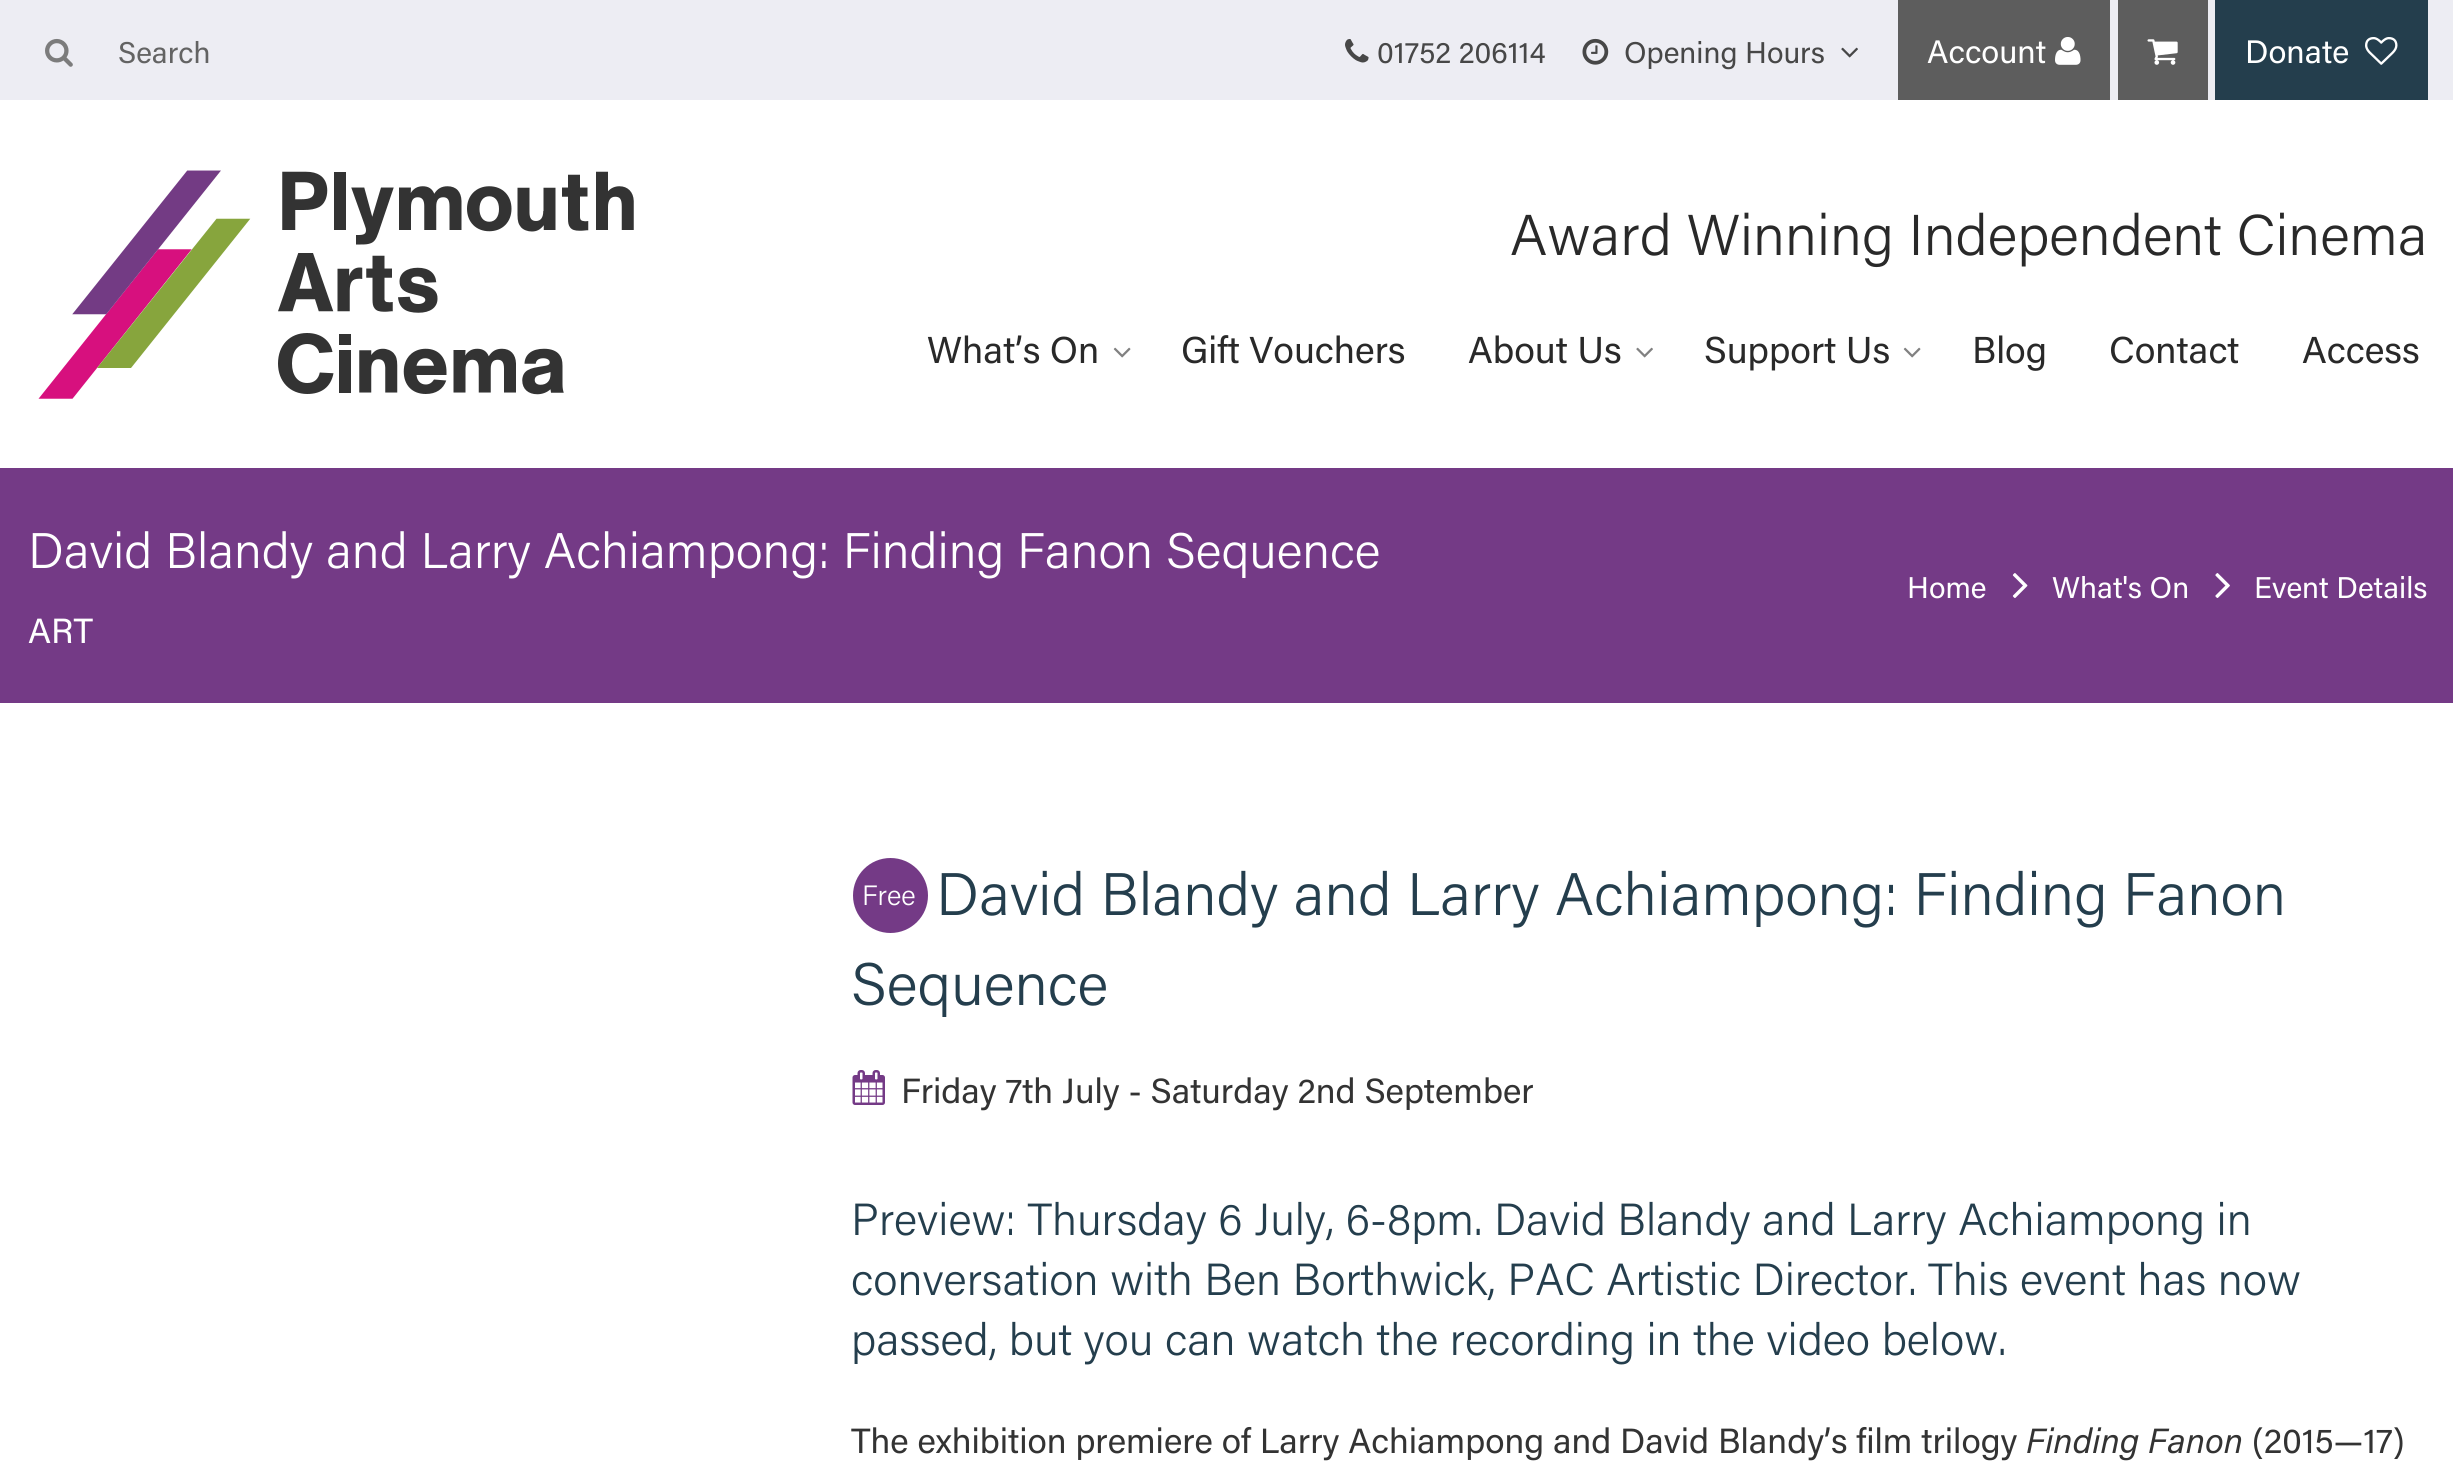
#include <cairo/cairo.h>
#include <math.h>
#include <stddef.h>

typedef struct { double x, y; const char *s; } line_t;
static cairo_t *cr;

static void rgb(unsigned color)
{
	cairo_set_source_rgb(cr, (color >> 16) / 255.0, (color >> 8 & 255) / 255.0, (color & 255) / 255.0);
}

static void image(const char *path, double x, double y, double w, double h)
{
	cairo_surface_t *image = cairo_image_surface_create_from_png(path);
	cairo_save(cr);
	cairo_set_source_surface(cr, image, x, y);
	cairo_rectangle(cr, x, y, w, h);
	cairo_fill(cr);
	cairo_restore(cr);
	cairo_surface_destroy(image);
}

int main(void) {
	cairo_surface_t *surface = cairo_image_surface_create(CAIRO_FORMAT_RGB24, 2453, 1471);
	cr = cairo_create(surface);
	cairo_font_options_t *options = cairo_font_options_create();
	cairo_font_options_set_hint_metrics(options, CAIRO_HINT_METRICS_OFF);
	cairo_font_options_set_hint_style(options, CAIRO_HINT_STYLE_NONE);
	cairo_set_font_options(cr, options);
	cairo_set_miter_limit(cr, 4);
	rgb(0xffffff);
	cairo_paint(cr);
	rgb(0xededf3);
	cairo_rectangle(cr, 0, 0, 2453, 100);
	cairo_fill(cr);
	image("img/1.png", 45, 38, 28, 29);
	image("img/2.png", 1345, 39, 24, 24);
	image("img/3.png", 1582, 38, 27, 27);
	image("img/4.png", 1841, 47, 17, 11);
	rgb(0x5d5d5d);
	cairo_rectangle(cr, 1898, 0, 212, 100);
	cairo_fill(cr);
	image("img/5.png", 2055, 37, 26, 28);
	cairo_rectangle(cr, 2118, 0, 90, 100);
	cairo_fill(cr);
	image("img/6.png", 2147, 39, 31, 26);
	rgb(0x243e4d);
	cairo_rectangle(cr, 2215, 0, 213, 100);
	cairo_fill(cr);
	image("img/7.png", 2365, 37, 33, 28);
	image("img/8.png", 38, 170, 596, 229);
	image("img/9.png", 1113, 347, 18, 11);
	image("img/10.png", 1636, 347, 17, 11);
	image("img/9.png", 1903, 347, 18, 11);
	rgb(0x743a86);
	cairo_rectangle(cr, 0, 468, 2453, 235);
	cairo_fill(cr);
	image("img/11.png", 2012, 573, 16, 25);
	image("img/12.png", 2215, 573, 15, 25);
	cairo_arc(cr, 890.5, 895.5, 37.5, 0, 2 * M_PI);
	cairo_fill(cr);
	image("img/13.png", 852, 1070, 33, 35);
	cairo_select_font_face(cr, "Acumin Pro", CAIRO_FONT_SLANT_NORMAL, CAIRO_FONT_WEIGHT_NORMAL);
	cairo_set_font_size(cr, 30);
	rgb(0x636363);
	cairo_move_to(cr, 118, 63);
	cairo_show_text(cr, "Search");
	rgb(0x474747);
	cairo_move_to(cr, 1377, 63);
	cairo_show_text(cr, "01752 206114");
	cairo_move_to(cr, 1624, 63);
	cairo_show_text(cr, "Opening Hours");
	cairo_set_font_size(cr, 32.5);
	rgb(0xffffff);
	cairo_move_to(cr, 1927, 63);
	cairo_show_text(cr, "Account");
	cairo_move_to(cr, 2245, 63);
	cairo_show_text(cr, "Donate");
	cairo_select_font_face(cr, "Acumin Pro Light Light", CAIRO_FONT_SLANT_NORMAL, CAIRO_FONT_WEIGHT_NORMAL);
	cairo_set_font_size(cr, 57.5);
	rgb(0x292929);
	cairo_move_to(cr, 1510, 255);
	cairo_show_text(cr, "Award Winning Independent Cinema");
	cairo_select_font_face(cr, "Acumin Pro", CAIRO_FONT_SLANT_NORMAL, CAIRO_FONT_WEIGHT_NORMAL);
	cairo_set_font_size(cr, 37.5);
	{
		static const line_t items[] = {
			{927, 363, "What’s On"},
			{1181, 363, "Gift Vouchers"},
			{1468, 363, "About Us"},
			{1704, 363, "Support Us"},
			{1972, 363, "Blog"},
			{2109, 363, "Contact"},
			{2302, 363, "Access"},
		};
		for (size_t i = 0; i < sizeof items / sizeof *items; i++) {
			cairo_move_to(cr, items[i].x, items[i].y);
			cairo_show_text(cr, items[i].s);
		}
	}
	cairo_select_font_face(cr, "Acumin Pro Light Light", CAIRO_FONT_SLANT_NORMAL, CAIRO_FONT_WEIGHT_NORMAL);
	cairo_set_font_size(cr, 50);
	rgb(0xffffff);
	cairo_move_to(cr, 28, 568);
	cairo_show_text(cr, "David Blandy and Larry Achiampong: Finding Fanon Sequence");
	cairo_select_font_face(cr, "Acumin Pro", CAIRO_FONT_SLANT_NORMAL, CAIRO_FONT_WEIGHT_NORMAL);
	cairo_set_font_size(cr, 35);
	cairo_move_to(cr, 28, 643);
	cairo_show_text(cr, "ART");
	cairo_set_font_size(cr, 30);
	{
		static const line_t items[] = {
			{1907, 598, "Home"},
			{2052, 598, "What's On"},
			{2254, 598, "Event Details"},
		};
		for (size_t i = 0; i < sizeof items / sizeof *items; i++) {
			cairo_move_to(cr, items[i].x, items[i].y);
			cairo_show_text(cr, items[i].s);
		}
	}
	cairo_select_font_face(cr, "Acumin Pro Light Light", CAIRO_FONT_SLANT_NORMAL, CAIRO_FONT_WEIGHT_NORMAL);
	cairo_set_font_size(cr, 28);
	cairo_move_to(cr, 862, 905);
	cairo_show_text(cr, "Free");
	cairo_set_font_size(cr, 60);
	rgb(0x243e4d);
	cairo_move_to(cr, 936, 915);
	cairo_show_text(cr, "David Blandy and Larry Achiampong: Finding Fanon");
	cairo_move_to(cr, 851, 1005);
	cairo_show_text(cr, "Sequence");
	cairo_select_font_face(cr, "Acumin Pro", CAIRO_FONT_SLANT_NORMAL, CAIRO_FONT_WEIGHT_NORMAL);
	cairo_set_font_size(cr, 35);
	rgb(0x333333);
	cairo_move_to(cr, 901, 1103);
	cairo_show_text(cr, "Friday 7th July - Saturday 2nd September");
	cairo_select_font_face(cr, "Acumin Pro Light Light", CAIRO_FONT_SLANT_NORMAL, CAIRO_FONT_WEIGHT_NORMAL);
	cairo_set_font_size(cr, 45);
	rgb(0x243e4d);
	{
		static const line_t items[] = {
			{851, 1235, "Preview: Thursday 6 July, 6-8pm. David Blandy and Larry Achiampong in"},
			{851, 1295, "conversation with Ben Borthwick, PAC Artistic Director. This event has now"},
			{851, 1355, "passed, but you can watch the recording in the video below."},
		};
		for (size_t i = 0; i < sizeof items / sizeof *items; i++) {
			cairo_move_to(cr, items[i].x, items[i].y);
			cairo_show_text(cr, items[i].s);
		}
	}
	cairo_select_font_face(cr, "Acumin Pro", CAIRO_FONT_SLANT_NORMAL, CAIRO_FONT_WEIGHT_NORMAL);
	cairo_set_font_size(cr, 35);
	rgb(0x333333);
	cairo_move_to(cr, 851, 1453);
	cairo_show_text(cr, "The exhibition premiere of Larry Achiampong and David Blandy’s film trilogy");
	cairo_select_font_face(cr, "Acumin Pro", CAIRO_FONT_SLANT_ITALIC, CAIRO_FONT_WEIGHT_NORMAL);
	cairo_move_to(cr, 2026, 1453);
	cairo_show_text(cr, "Finding Fanon");
	cairo_select_font_face(cr, "Acumin Pro", CAIRO_FONT_SLANT_NORMAL, CAIRO_FONT_WEIGHT_NORMAL);
	cairo_move_to(cr, 2252, 1453);
	cairo_show_text(cr, "(2015—17)");
	cairo_surface_write_to_png(surface, "page.png");
	cairo_font_options_destroy(options);
	cairo_destroy(cr);
	cairo_surface_destroy(surface);
	return 0;
}
